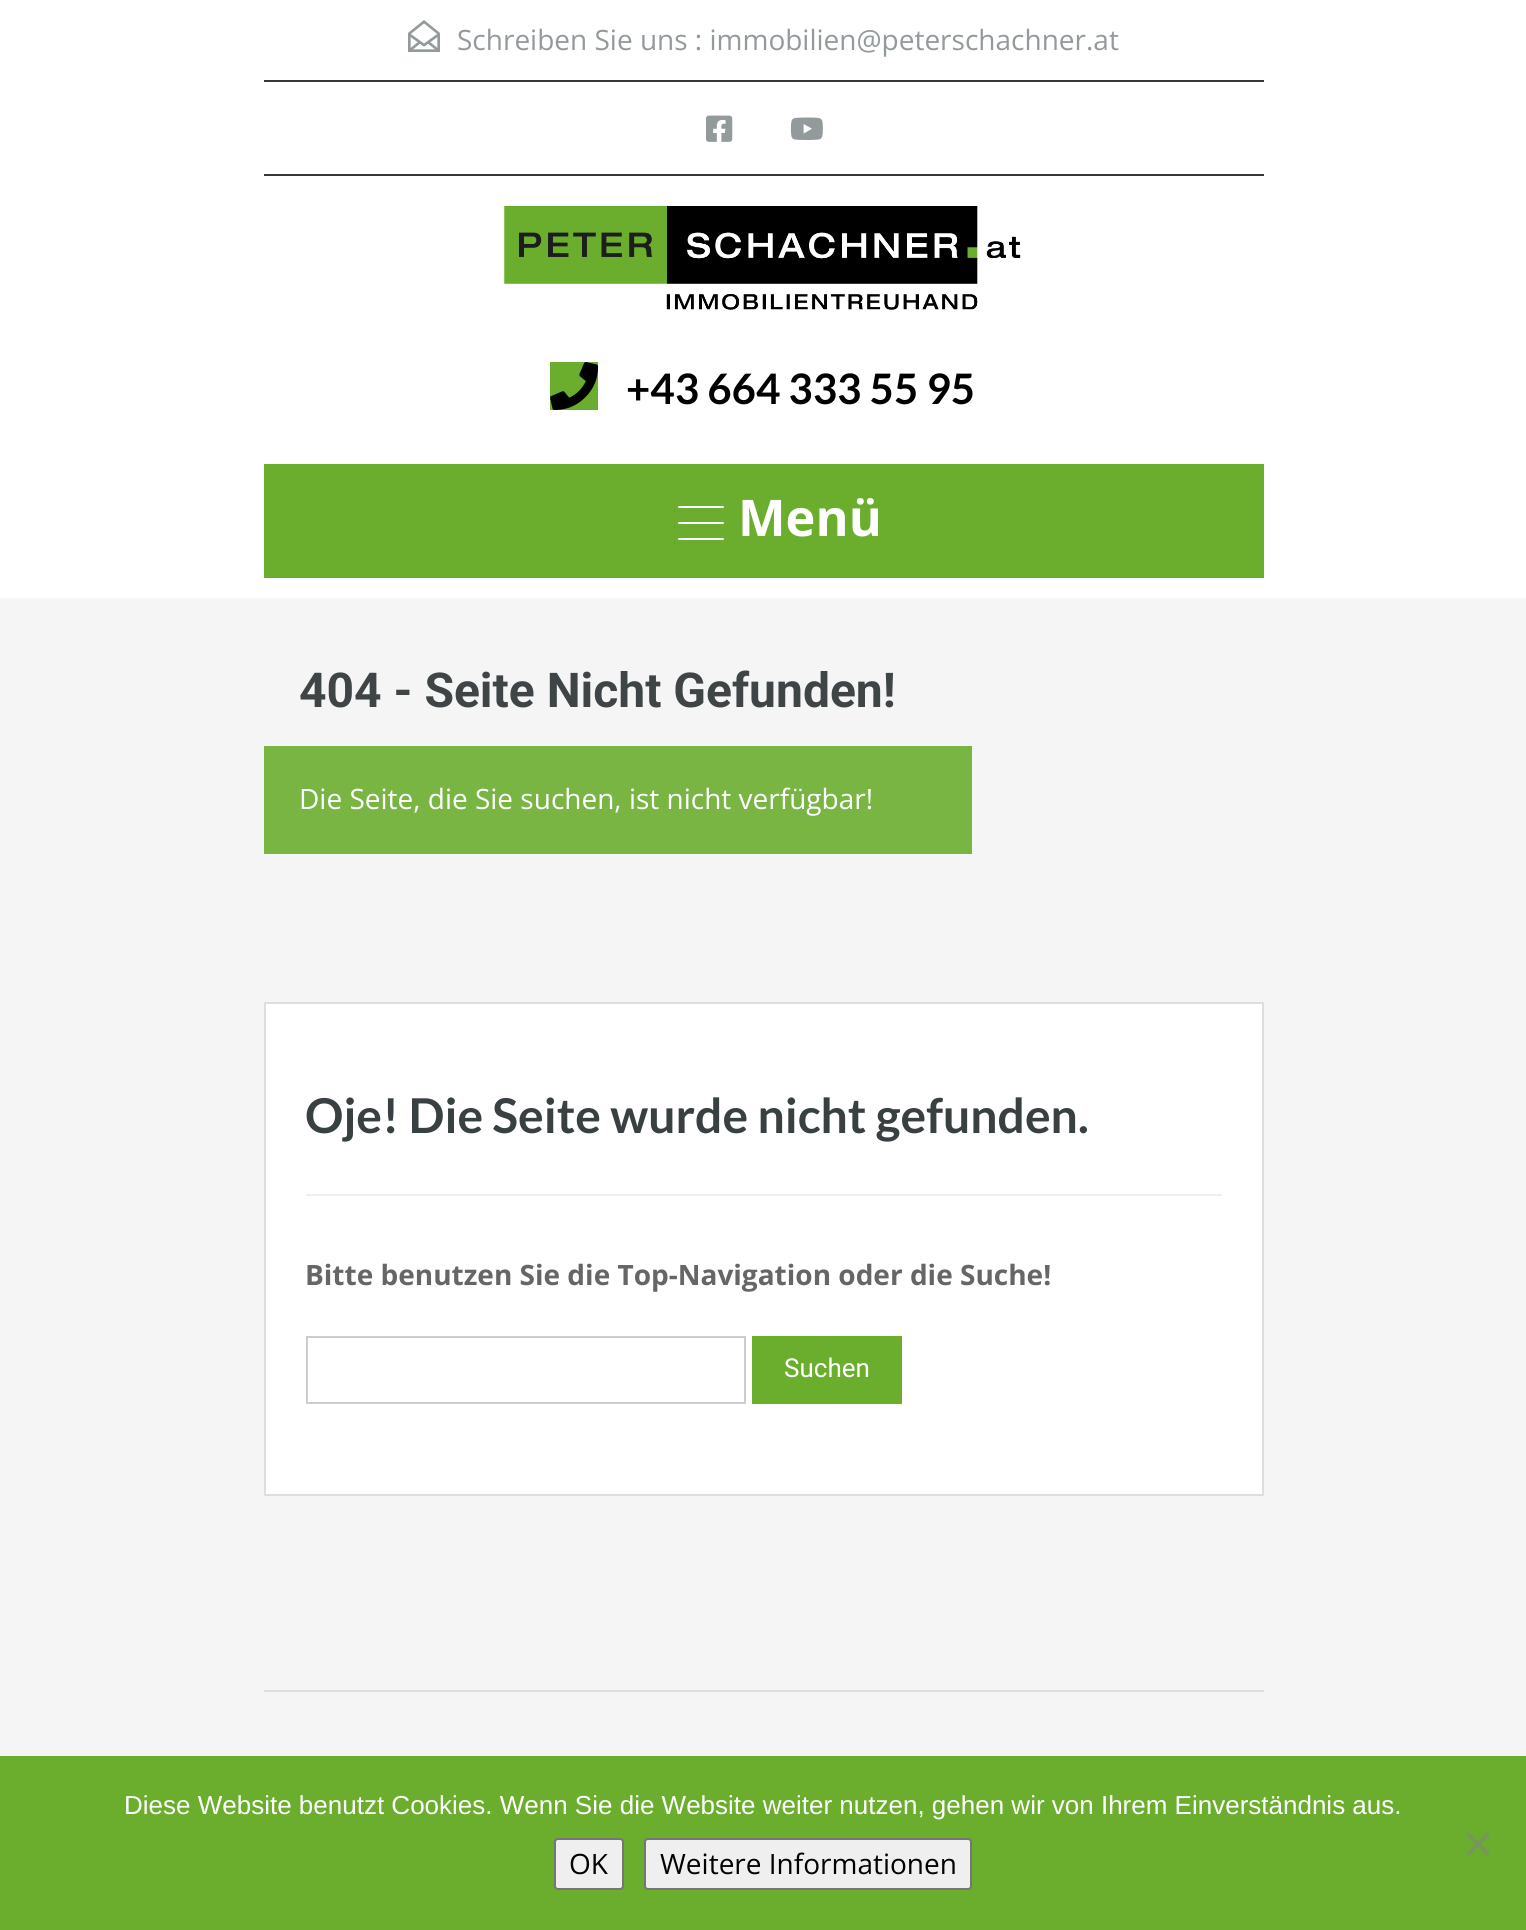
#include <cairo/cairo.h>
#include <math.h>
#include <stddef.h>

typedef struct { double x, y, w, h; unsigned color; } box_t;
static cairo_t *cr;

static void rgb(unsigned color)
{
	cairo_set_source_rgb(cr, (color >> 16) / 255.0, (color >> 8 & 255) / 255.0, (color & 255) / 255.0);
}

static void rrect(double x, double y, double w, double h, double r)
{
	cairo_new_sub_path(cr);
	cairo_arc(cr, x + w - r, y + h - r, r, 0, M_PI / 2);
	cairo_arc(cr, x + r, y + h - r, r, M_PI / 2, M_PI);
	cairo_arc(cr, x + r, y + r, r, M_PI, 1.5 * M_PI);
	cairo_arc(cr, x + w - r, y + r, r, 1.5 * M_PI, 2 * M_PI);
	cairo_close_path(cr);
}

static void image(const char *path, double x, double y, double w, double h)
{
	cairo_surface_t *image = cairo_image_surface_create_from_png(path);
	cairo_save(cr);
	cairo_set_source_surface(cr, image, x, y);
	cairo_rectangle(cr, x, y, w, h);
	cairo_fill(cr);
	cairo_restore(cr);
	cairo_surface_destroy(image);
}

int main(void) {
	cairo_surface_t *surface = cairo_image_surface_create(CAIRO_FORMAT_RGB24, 1526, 1930);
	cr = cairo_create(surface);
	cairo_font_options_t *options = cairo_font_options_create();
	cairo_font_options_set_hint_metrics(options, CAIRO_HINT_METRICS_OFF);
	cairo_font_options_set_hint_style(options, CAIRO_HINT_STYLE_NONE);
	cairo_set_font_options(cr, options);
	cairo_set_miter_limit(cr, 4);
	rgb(0xf5f5f5);
	cairo_paint(cr);
	rgb(0xffffff);
	cairo_rectangle(cr, 0, 0, 1526, 598);
	cairo_fill(cr);
	rgb(0x343a3b);
	cairo_rectangle(cr, 264, 174, 1000, 2);
	cairo_fill(cr);
	image("img/1.png", 408, 20, 32, 32);
	cairo_rectangle(cr, 264, 80, 1000, 2);
	cairo_fill(cr);
	image("img/2.png", 706, 115, 27, 27);
	image("img/3.png", 790, 117, 33, 23);
	image("img/4.png", 504, 206, 517, 104);
	rgb(0x6bae2e);
	cairo_rectangle(cr, 550, 362, 48, 48);
	cairo_fill(cr);
	image("img/5.png", 550, 362, 49, 48);
	cairo_rectangle(cr, 264, 464, 1000, 114);
	cairo_fill(cr);
	rgb(0xffffff);
	rrect(678, 522, 46, 2, 1);
	cairo_fill(cr);
	rrect(678, 506, 46, 2, 1);
	cairo_fill(cr);
	rrect(678, 538, 46, 2, 1);
	cairo_fill(cr);
	{
		static const box_t items[] = {
			{264, 746, 708, 108, 0x79b542},
			{1262, 1002, 2, 494, 0xdedede},
			{264, 1002, 2, 494, 0xdedede},
			{266, 1004, 996, 490, 0xffffff},
			{266, 1002, 996, 2, 0xdedede},
			{266, 1494, 996, 2, 0xdedede},
			{306, 1194, 916, 2, 0xeeeeee},
		};
		for (size_t i = 0; i < sizeof items / sizeof *items; i++) {
			rgb(items[i].color);
			cairo_rectangle(cr, items[i].x, items[i].y, items[i].w, items[i].h);
			cairo_fill(cr);
		}
	}
	cairo_rectangle(cr, 307, 1337, 438, 66);
	rgb(0xcdcdcd);
	cairo_stroke(cr);
	{
		static const box_t items[] = {
			{752, 1336, 150, 68, 0x6bae2e},
			{264, 1690, 1000, 2, 0xdedede},
			{0, 1756, 1526, 174, 0x6bae2e},
		};
		for (size_t i = 0; i < sizeof items / sizeof *items; i++) {
			rgb(items[i].color);
			cairo_rectangle(cr, items[i].x, items[i].y, items[i].w, items[i].h);
			cairo_fill(cr);
		}
	}
	rgb(0x769757);
	cairo_new_path(cr);
	cairo_move_to(cr, 1487, 1832);
	cairo_line_to(cr, 1490, 1835);
	cairo_line_to(cr, 1469, 1856);
	cairo_line_to(cr, 1466, 1853);
	cairo_close_path(cr);
	cairo_fill(cr);
	cairo_new_path(cr);
	cairo_move_to(cr, 1466, 1835);
	cairo_line_to(cr, 1469, 1832);
	cairo_line_to(cr, 1490, 1853);
	cairo_line_to(cr, 1487, 1856);
	cairo_close_path(cr);
	cairo_fill(cr);
	rgb(0xefefef);
	rrect(555, 1839, 68, 50, 3);
	cairo_fill_preserve(cr);
	rgb(0x767676);
	cairo_stroke(cr);
	rgb(0xefefef);
	rrect(645, 1839, 326, 50, 3);
	cairo_fill_preserve(cr);
	rgb(0x767676);
	cairo_stroke(cr);
	cairo_select_font_face(cr, "Open Sans", CAIRO_FONT_SLANT_NORMAL, CAIRO_FONT_WEIGHT_NORMAL);
	cairo_set_font_size(cr, 28);
	rgb(0x929a9b);
	cairo_move_to(cr, 457, 50);
	cairo_show_text(cr, "Schreiben Sie uns : immobilien@peterschachner.at");
	cairo_select_font_face(cr, "Lato", CAIRO_FONT_SLANT_NORMAL, CAIRO_FONT_WEIGHT_BOLD);
	cairo_set_font_size(cr, 42);
	rgb(0x000000);
	cairo_move_to(cr, 626, 404);
	cairo_show_text(cr, "+43 664 333 55 95");
	cairo_select_font_face(cr, "Open Sans", CAIRO_FONT_SLANT_NORMAL, CAIRO_FONT_WEIGHT_BOLD);
	cairo_set_font_size(cr, 50.5);
	rgb(0xffffff);
	cairo_move_to(cr, 738, 536);
	cairo_show_text(cr, "Menü");
	cairo_select_font_face(cr, "Roboto", CAIRO_FONT_SLANT_NORMAL, CAIRO_FONT_WEIGHT_BOLD);
	cairo_set_font_size(cr, 48);
	rgb(0x3f4546);
	cairo_move_to(cr, 299, 707);
	cairo_show_text(cr, "404 - Seite Nicht Gefunden!");
	cairo_select_font_face(cr, "Open Sans", CAIRO_FONT_SLANT_NORMAL, CAIRO_FONT_WEIGHT_NORMAL);
	cairo_set_font_size(cr, 28);
	rgb(0xffffff);
	cairo_move_to(cr, 299, 809);
	cairo_show_text(cr, "Die Seite, die Sie suchen, ist nicht verfügbar!");
	cairo_select_font_face(cr, "Lato", CAIRO_FONT_SLANT_NORMAL, CAIRO_FONT_WEIGHT_BOLD);
	cairo_set_font_size(cr, 48);
	rgb(0x394041);
	cairo_move_to(cr, 305, 1133);
	cairo_show_text(cr, "Oje! Die Seite wurde nicht gefunden.");
	cairo_select_font_face(cr, "Open Sans", CAIRO_FONT_SLANT_NORMAL, CAIRO_FONT_WEIGHT_BOLD);
	cairo_set_font_size(cr, 28);
	rgb(0x666666);
	cairo_move_to(cr, 305, 1285);
	cairo_show_text(cr, "Bitte benutzen Sie die Top-Navigation oder die Suche!");
	cairo_select_font_face(cr, "Roboto", CAIRO_FONT_SLANT_NORMAL, CAIRO_FONT_WEIGHT_NORMAL);
	cairo_set_font_size(cr, 26);
	rgb(0xffffff);
	cairo_move_to(cr, 784, 1377);
	cairo_show_text(cr, "Suchen");
	cairo_select_font_face(cr, "Liberation Sans", CAIRO_FONT_SLANT_NORMAL, CAIRO_FONT_WEIGHT_NORMAL);
	cairo_move_to(cr, 124, 1814);
	cairo_show_text(cr, "Diese Website benutzt Cookies. Wenn Sie die Website weiter nutzen, gehen wir von Ihrem Einverständnis aus.");
	cairo_select_font_face(cr, "Open Sans", CAIRO_FONT_SLANT_NORMAL, CAIRO_FONT_WEIGHT_NORMAL);
	cairo_set_font_size(cr, 28);
	rgb(0x000000);
	cairo_move_to(cr, 569, 1874);
	cairo_show_text(cr, "OK");
	cairo_move_to(cr, 660, 1874);
	cairo_show_text(cr, "Weitere Informationen");
	cairo_surface_write_to_png(surface, "page.png");
	cairo_font_options_destroy(options);
	cairo_destroy(cr);
	cairo_surface_destroy(surface);
	return 0;
}
